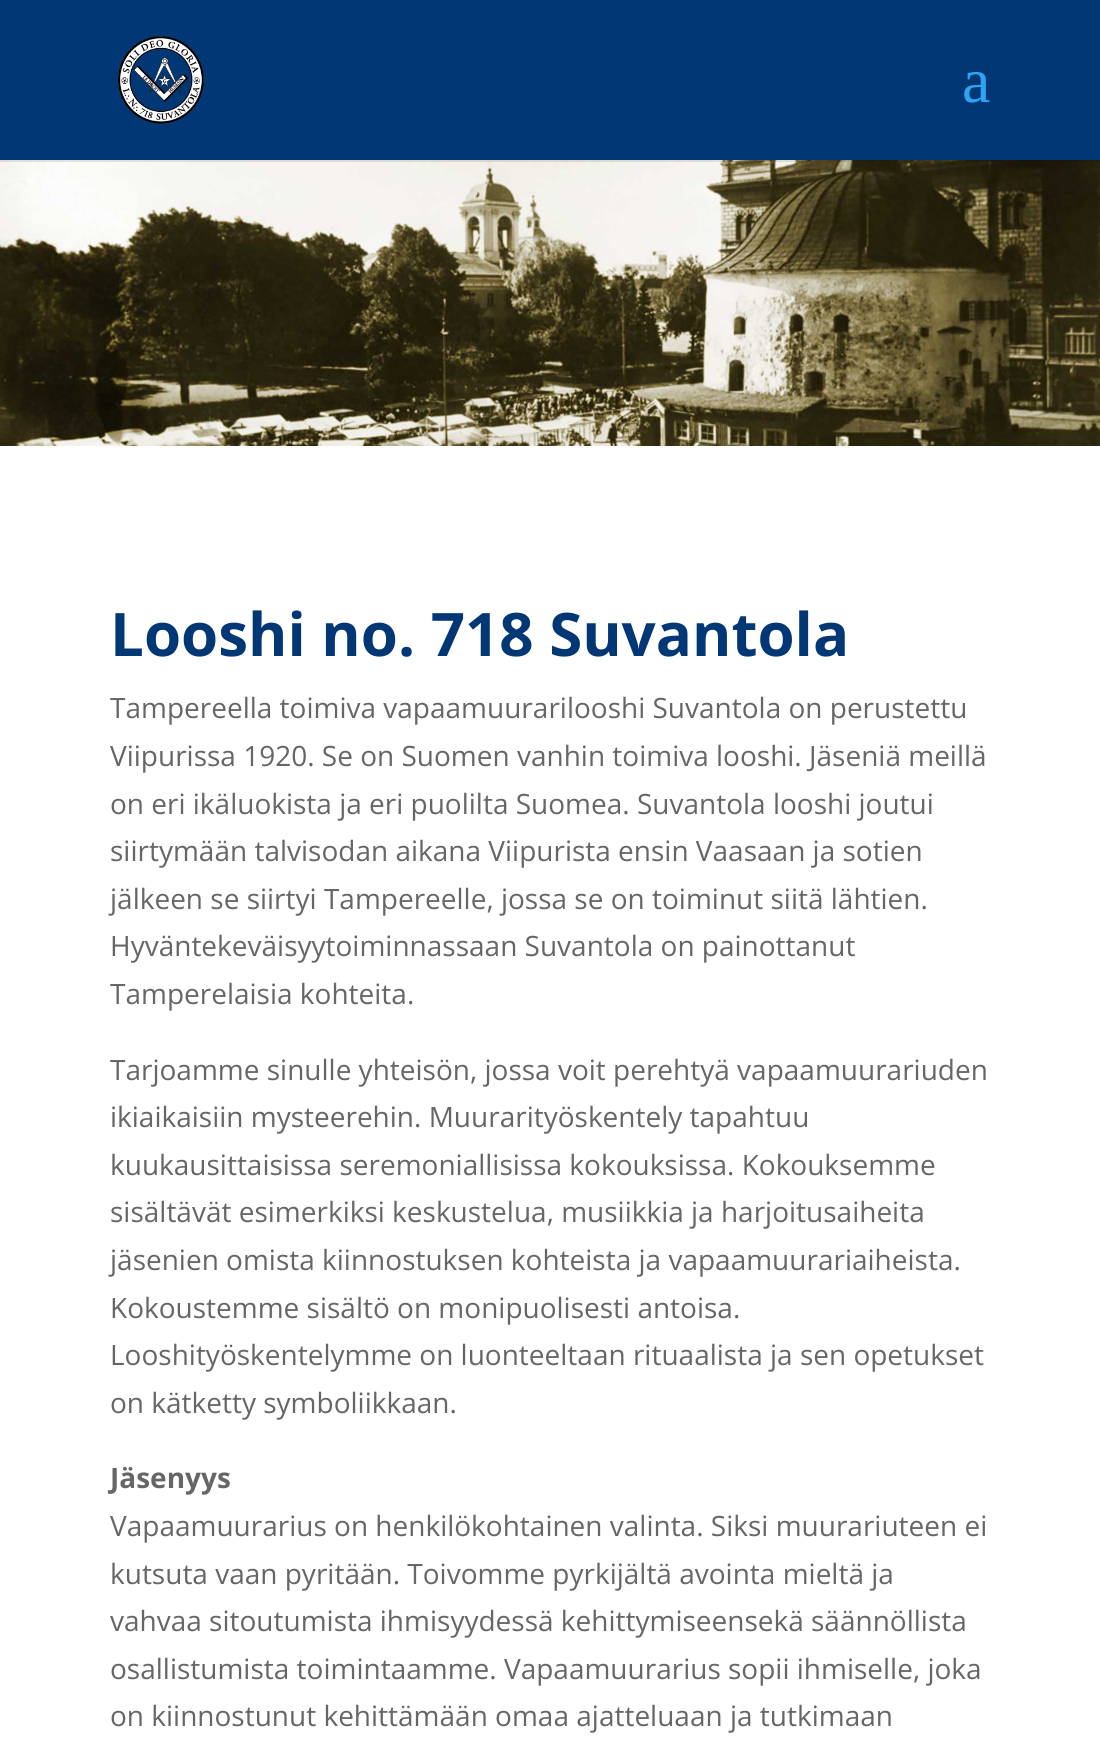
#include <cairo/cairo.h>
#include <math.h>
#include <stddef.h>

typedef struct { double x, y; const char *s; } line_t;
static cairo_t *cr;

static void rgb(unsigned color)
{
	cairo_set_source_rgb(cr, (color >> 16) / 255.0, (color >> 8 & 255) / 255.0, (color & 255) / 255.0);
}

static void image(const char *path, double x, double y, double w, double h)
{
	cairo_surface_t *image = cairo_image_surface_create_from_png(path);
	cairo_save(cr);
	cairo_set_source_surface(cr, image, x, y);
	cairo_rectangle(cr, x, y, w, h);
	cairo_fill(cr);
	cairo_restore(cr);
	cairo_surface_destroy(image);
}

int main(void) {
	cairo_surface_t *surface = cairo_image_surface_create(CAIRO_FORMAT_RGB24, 1100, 1761);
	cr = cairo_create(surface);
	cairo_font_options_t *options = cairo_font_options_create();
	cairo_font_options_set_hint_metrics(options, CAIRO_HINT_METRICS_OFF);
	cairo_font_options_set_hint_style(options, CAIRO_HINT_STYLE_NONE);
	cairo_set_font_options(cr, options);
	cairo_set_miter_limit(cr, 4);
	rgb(0xffffff);
	cairo_paint(cr);
	image("img/2.png", 0, 160, 1100, 286);
	cairo_set_source_rgba(cr, 0, 0, 0, 0.1);
	cairo_rectangle(cr, 0, 160, 1100, 2);
	cairo_fill(cr);
	rgb(0x013775);
	cairo_rectangle(cr, 0, 0, 1100, 160);
	cairo_fill(cr);
	image("img/1.png", 118, 36, 86, 88);
	cairo_select_font_face(cr, "Liberation Serif", CAIRO_FONT_SLANT_NORMAL, CAIRO_FONT_WEIGHT_NORMAL);
	cairo_set_font_size(cr, 64);
	rgb(0x2ea3f2);
	cairo_move_to(cr, 962, 102);
	cairo_show_text(cr, "a");
	cairo_select_font_face(cr, "Open Sans", CAIRO_FONT_SLANT_NORMAL, CAIRO_FONT_WEIGHT_BOLD);
	cairo_set_font_size(cr, 60);
	rgb(0x013775);
	cairo_move_to(cr, 110, 656);
	cairo_show_text(cr, "Looshi no. 718 Suvantola");
	cairo_select_font_face(cr, "Open Sans", CAIRO_FONT_SLANT_NORMAL, CAIRO_FONT_WEIGHT_NORMAL);
	cairo_set_font_size(cr, 28);
	rgb(0x666666);
	{
		static const line_t items[] = {
			{110, 718, "Tampereella toimiva vapaamuurarilooshi Suvantola on perustettu"},
			{110, 766, "Viipurissa 1920. Se on Suomen vanhin toimiva looshi. Jäseniä meillä"},
			{110, 814, "on eri ikäluokista ja eri puolilta Suomea. Suvantola looshi joutui"},
			{110, 861, "siirtymään talvisodan aikana Viipurista ensin Vaasaan ja sotien"},
			{110, 909, "jälkeen se siirtyi Tampereelle, jossa se on toiminut siitä lähtien."},
			{110, 956, "Hyväntekeväisyytoiminnassaan Suvantola on painottanut"},
			{110, 1004, "Tamperelaisia kohteita."},
			{110, 1080, "Tarjoamme sinulle yhteisön, jossa voit perehtyä vapaamuurariuden"},
			{110, 1127, "ikiaikaisiin mysteerehin. Muurarityöskentely tapahtuu"},
			{110, 1175, "kuukausittaisissa seremoniallisissa kokouksissa. Kokouksemme"},
			{110, 1222, "sisältävät esimerkiksi keskustelua, musiikkia ja harjoitusaiheita"},
			{110, 1270, "jäsenien omista kiinnostuksen kohteista ja vapaamuurariaiheista."},
			{110, 1318, "Kokoustemme sisältö on monipuolisesti antoisa."},
			{110, 1365, "Looshityöskentelymme on luonteeltaan rituaalista ja sen opetukset"},
			{110, 1413, "on kätketty symboliikkaan."},
		};
		for (size_t i = 0; i < sizeof items / sizeof *items; i++) {
			cairo_move_to(cr, items[i].x, items[i].y);
			cairo_show_text(cr, items[i].s);
		}
	}
	cairo_select_font_face(cr, "Open Sans", CAIRO_FONT_SLANT_NORMAL, CAIRO_FONT_WEIGHT_BOLD);
	cairo_move_to(cr, 110, 1488);
	cairo_show_text(cr, "Jäsenyys");
	cairo_select_font_face(cr, "Open Sans", CAIRO_FONT_SLANT_NORMAL, CAIRO_FONT_WEIGHT_NORMAL);
	{
		static const line_t items[] = {
			{110, 1536, "Vapaamuurarius on henkilökohtainen valinta. Siksi muurariuteen ei"},
			{110, 1584, "kutsuta vaan pyritään. Toivomme pyrkijältä avointa mieltä ja"},
			{110, 1631, "vahvaa sitoutumista ihmisyydessä kehittymiseensekä säännöllista"},
			{110, 1679, "osallistumista toimintaamme. Vapaamuurarius sopii ihmiselle, joka"},
			{110, 1726, "on kiinnostunut kehittämään omaa ajatteluaan ja tutkimaan"},
		};
		for (size_t i = 0; i < sizeof items / sizeof *items; i++) {
			cairo_move_to(cr, items[i].x, items[i].y);
			cairo_show_text(cr, items[i].s);
		}
	}
	cairo_surface_write_to_png(surface, "page.png");
	cairo_font_options_destroy(options);
	cairo_destroy(cr);
	cairo_surface_destroy(surface);
	return 0;
}
